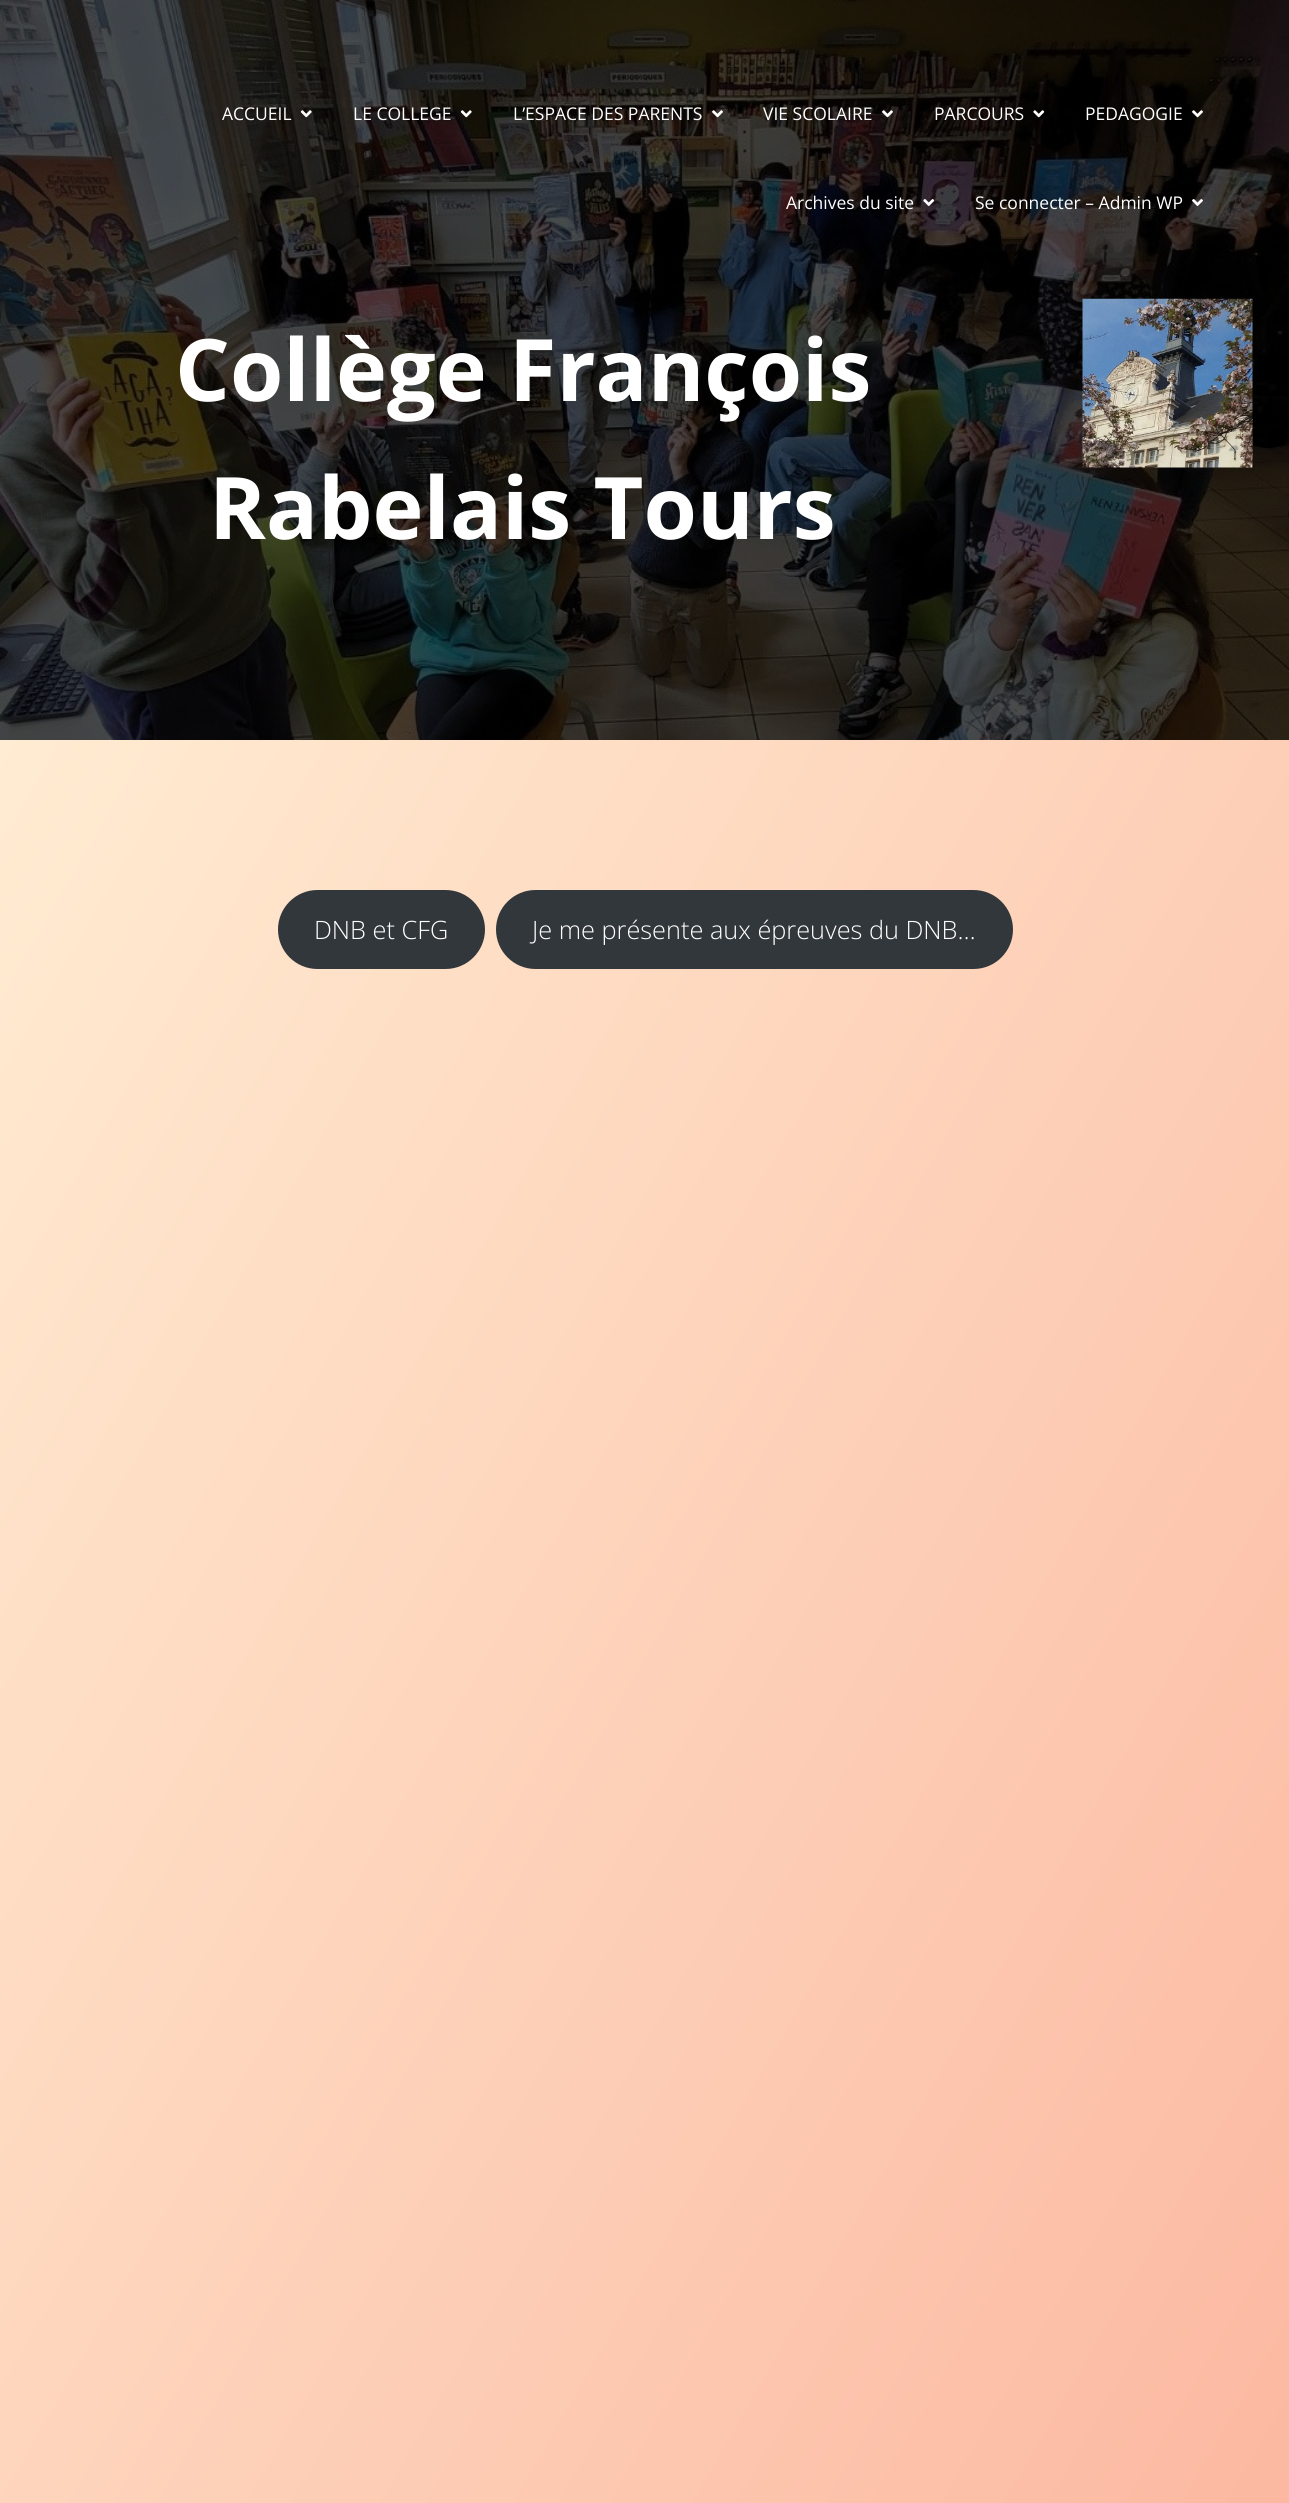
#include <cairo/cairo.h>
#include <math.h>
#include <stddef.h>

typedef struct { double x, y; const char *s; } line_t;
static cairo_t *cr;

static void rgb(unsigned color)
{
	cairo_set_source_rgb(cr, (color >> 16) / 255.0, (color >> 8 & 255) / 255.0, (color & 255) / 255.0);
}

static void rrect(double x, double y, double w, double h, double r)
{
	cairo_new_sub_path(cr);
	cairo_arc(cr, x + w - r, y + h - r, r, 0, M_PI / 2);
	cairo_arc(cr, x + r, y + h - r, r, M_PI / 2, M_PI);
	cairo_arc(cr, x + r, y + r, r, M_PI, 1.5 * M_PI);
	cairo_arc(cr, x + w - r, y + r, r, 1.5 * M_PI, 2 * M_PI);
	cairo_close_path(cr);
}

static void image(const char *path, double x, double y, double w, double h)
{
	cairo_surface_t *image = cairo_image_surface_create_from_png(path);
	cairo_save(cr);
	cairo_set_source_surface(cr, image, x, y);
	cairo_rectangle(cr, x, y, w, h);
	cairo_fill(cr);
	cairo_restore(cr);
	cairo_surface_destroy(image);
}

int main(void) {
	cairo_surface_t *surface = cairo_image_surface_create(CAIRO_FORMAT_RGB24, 1289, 2503);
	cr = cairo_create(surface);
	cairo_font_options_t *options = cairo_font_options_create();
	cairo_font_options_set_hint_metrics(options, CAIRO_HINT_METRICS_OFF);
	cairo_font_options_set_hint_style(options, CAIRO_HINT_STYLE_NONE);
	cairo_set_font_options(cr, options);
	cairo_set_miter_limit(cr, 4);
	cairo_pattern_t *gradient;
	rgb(0xffffff);
	cairo_paint(cr);
	image("img/9.png", 0, 0, 1289, 740);
	image("img/1.png", 300, 110, 12, 8);
	image("img/2.png", 460, 110, 12, 8);
	image("img/3.png", 712, 110, 11, 8);
	image("img/4.png", 882, 110, 11, 8);
	image("img/5.png", 1033, 110, 12, 8);
	image("img/6.png", 1192, 110, 11, 8);
	image("img/7.png", 923, 199, 12, 7);
	image("img/8.png", 1192, 199, 11, 7);
	image("img/10.png", 1082, 298, 171, 170);
	gradient = cairo_pattern_create_linear(-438, 1498, 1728, 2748);
	cairo_pattern_add_color_stop_rgba(gradient, 0, 1, 0.925, 0.824, 1);
	cairo_pattern_add_color_stop_rgba(gradient, 0.83, 0.988, 0.714, 0.624, 1);
	cairo_set_source(cr, gradient);
	cairo_pattern_destroy(gradient);
	cairo_rectangle(cr, 0, 740, 1289, 1763);
	cairo_fill(cr);
	rgb(0x32373c);
	rrect(278, 890, 207, 79, 39.5);
	cairo_fill(cr);
	rrect(496, 890, 517, 79, 39.5);
	cairo_fill(cr);
	cairo_select_font_face(cr, "Open Sans", CAIRO_FONT_SLANT_NORMAL, CAIRO_FONT_WEIGHT_NORMAL);
	cairo_set_font_size(cr, 17.5);
	rgb(0xffffff);
	{
		static const line_t items[] = {
			{222, 120, "ACCUEIL"},
			{353, 120, "LE COLLEGE"},
			{513, 120, "L’ESPACE DES PARENTS"},
			{763, 120, "VIE SCOLAIRE"},
			{934, 120, "PARCOURS"},
			{1085, 120, "PEDAGOGIE"},
			{786, 209, "Archives du site"},
			{975, 209, "Se connecter – Admin WP"},
		};
		for (size_t i = 0; i < sizeof items / sizeof *items; i++) {
			cairo_move_to(cr, items[i].x, items[i].y);
			cairo_show_text(cr, items[i].s);
		}
	}
	cairo_select_font_face(cr, "Open Sans", CAIRO_FONT_SLANT_NORMAL, CAIRO_FONT_WEIGHT_BOLD);
	cairo_set_font_size(cr, 86.25);
	cairo_move_to(cr, 175, 401);
	cairo_show_text(cr, "Collège François");
	cairo_move_to(cr, 209, 539);
	cairo_show_text(cr, "Rabelais Tours");
	cairo_select_font_face(cr, "Open Sans Light", CAIRO_FONT_SLANT_NORMAL, CAIRO_FONT_WEIGHT_NORMAL);
	cairo_set_font_size(cr, 25.3);
	cairo_move_to(cr, 314, 939);
	cairo_show_text(cr, "DNB et CFG");
	cairo_move_to(cr, 532, 939);
	cairo_show_text(cr, "Je me présente aux épreuves du DNB…");
	cairo_surface_write_to_png(surface, "page.png");
	cairo_font_options_destroy(options);
	cairo_destroy(cr);
	cairo_surface_destroy(surface);
	return 0;
}
